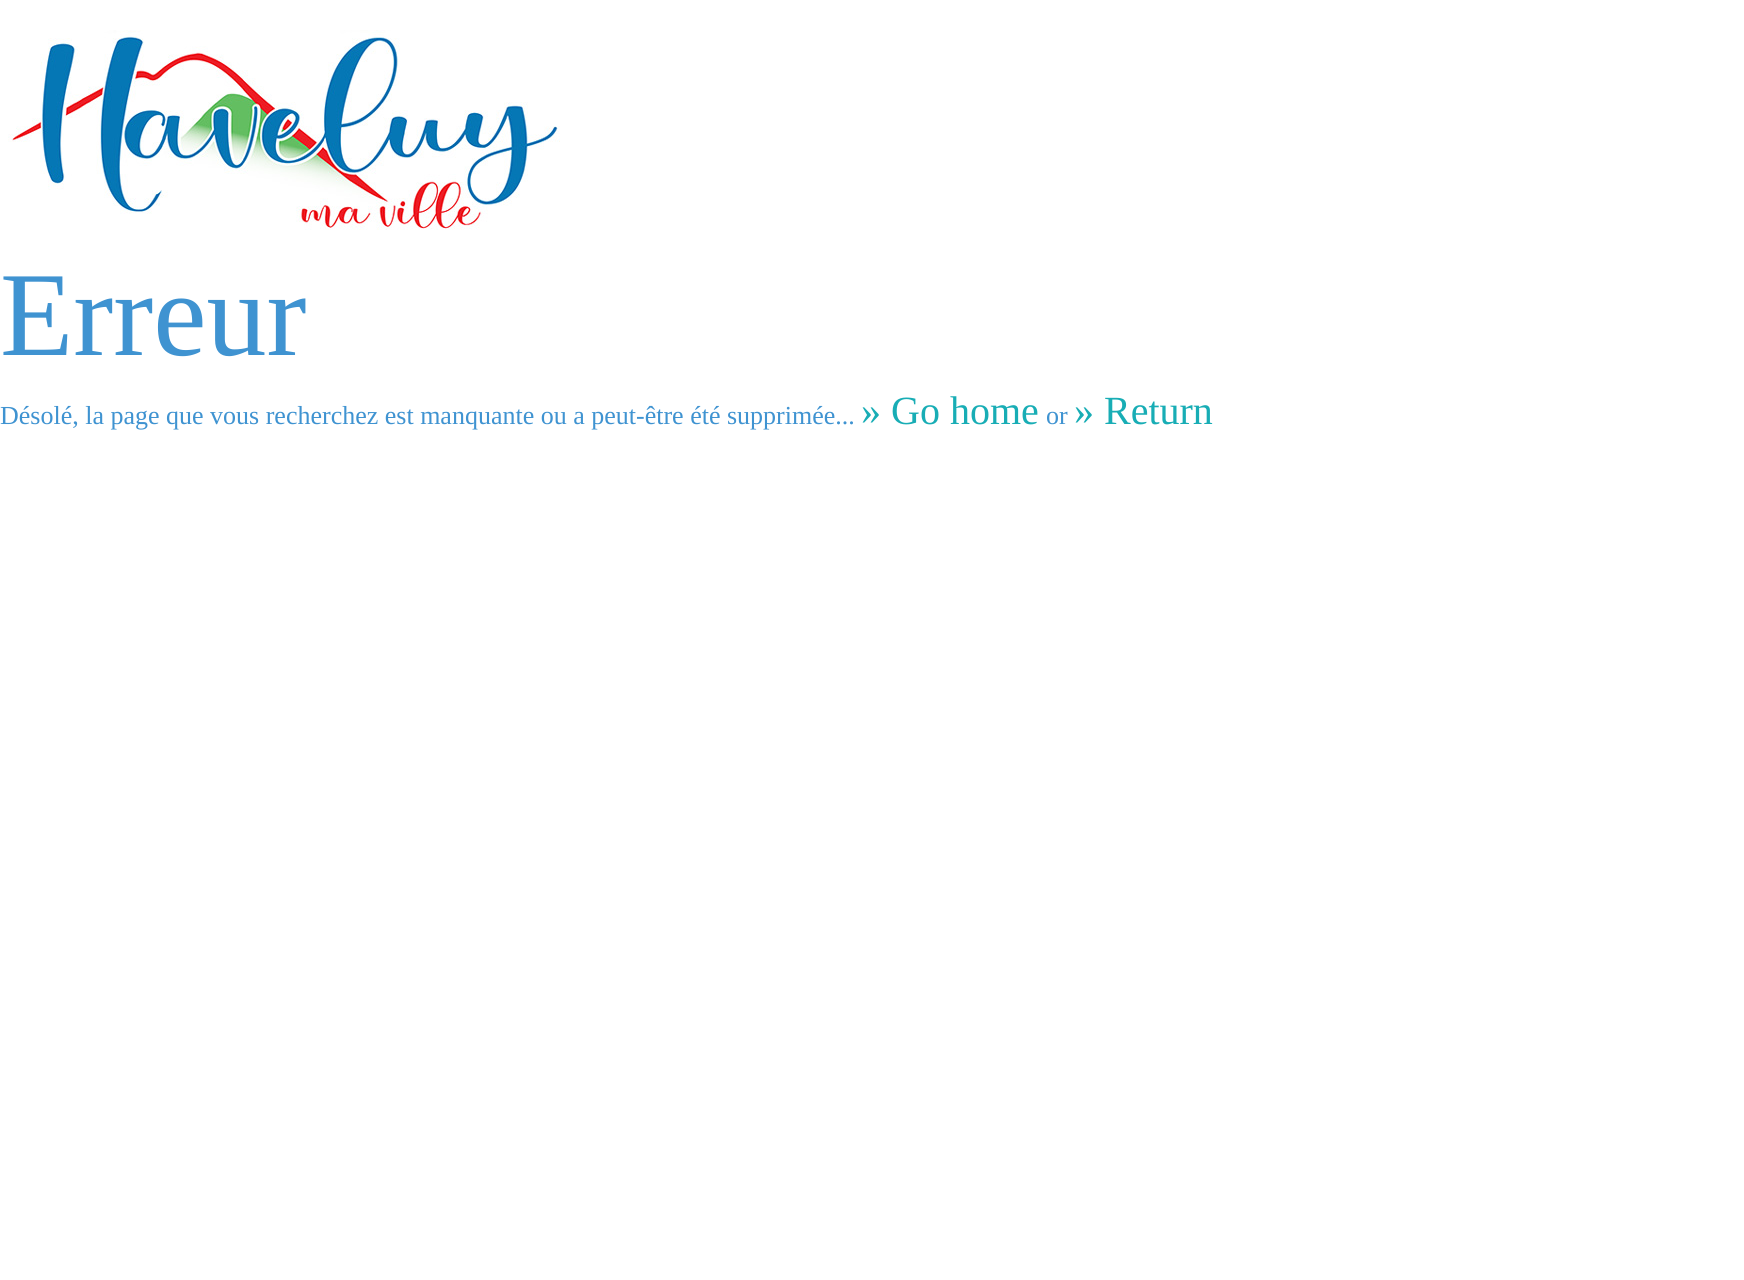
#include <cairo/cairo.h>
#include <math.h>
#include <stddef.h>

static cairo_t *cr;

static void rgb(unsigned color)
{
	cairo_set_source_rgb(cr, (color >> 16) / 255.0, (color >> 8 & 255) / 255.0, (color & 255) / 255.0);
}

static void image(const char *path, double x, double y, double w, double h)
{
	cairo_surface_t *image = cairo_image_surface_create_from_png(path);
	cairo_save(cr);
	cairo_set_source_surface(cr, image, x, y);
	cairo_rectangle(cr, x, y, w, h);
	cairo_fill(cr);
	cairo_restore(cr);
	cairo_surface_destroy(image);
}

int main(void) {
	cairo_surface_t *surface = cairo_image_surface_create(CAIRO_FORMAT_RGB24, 1744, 1280);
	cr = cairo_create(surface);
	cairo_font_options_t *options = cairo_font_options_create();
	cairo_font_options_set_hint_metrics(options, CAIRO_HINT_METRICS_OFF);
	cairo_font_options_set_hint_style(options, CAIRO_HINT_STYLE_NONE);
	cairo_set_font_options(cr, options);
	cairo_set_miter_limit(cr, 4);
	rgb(0xffffff);
	cairo_paint(cr);
	image("img/1.png", 8, 30, 552, 200);
	cairo_select_font_face(cr, "Liberation Serif", CAIRO_FONT_SLANT_NORMAL, CAIRO_FONT_WEIGHT_NORMAL);
	cairo_set_font_size(cr, 120);
	rgb(0x3f93d1);
	cairo_move_to(cr, 0, 355);
	cairo_show_text(cr, "Erreur");
	cairo_set_font_size(cr, 26);
	cairo_move_to(cr, 0, 424);
	cairo_show_text(cr, "Désolé, la page que vous recherchez est manquante ou a peut-être été supprimée...");
	cairo_set_font_size(cr, 40);
	rgb(0x18adb5);
	cairo_move_to(cr, 861, 424);
	cairo_show_text(cr, "» Go home");
	cairo_set_font_size(cr, 26);
	rgb(0x3f93d1);
	cairo_move_to(cr, 1046, 424);
	cairo_show_text(cr, "or");
	cairo_set_font_size(cr, 40);
	rgb(0x18adb5);
	cairo_move_to(cr, 1074, 424);
	cairo_show_text(cr, "» Return");
	cairo_surface_write_to_png(surface, "page.png");
	cairo_font_options_destroy(options);
	cairo_destroy(cr);
	cairo_surface_destroy(surface);
	return 0;
}
